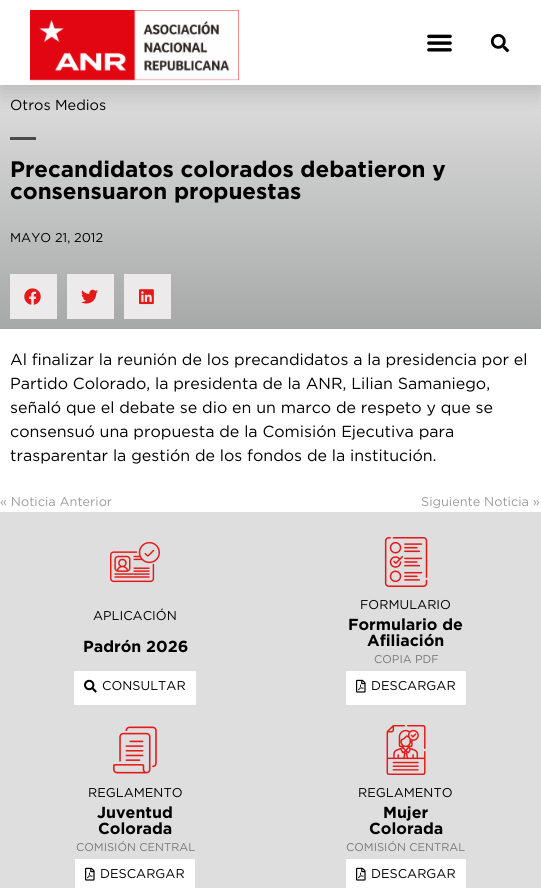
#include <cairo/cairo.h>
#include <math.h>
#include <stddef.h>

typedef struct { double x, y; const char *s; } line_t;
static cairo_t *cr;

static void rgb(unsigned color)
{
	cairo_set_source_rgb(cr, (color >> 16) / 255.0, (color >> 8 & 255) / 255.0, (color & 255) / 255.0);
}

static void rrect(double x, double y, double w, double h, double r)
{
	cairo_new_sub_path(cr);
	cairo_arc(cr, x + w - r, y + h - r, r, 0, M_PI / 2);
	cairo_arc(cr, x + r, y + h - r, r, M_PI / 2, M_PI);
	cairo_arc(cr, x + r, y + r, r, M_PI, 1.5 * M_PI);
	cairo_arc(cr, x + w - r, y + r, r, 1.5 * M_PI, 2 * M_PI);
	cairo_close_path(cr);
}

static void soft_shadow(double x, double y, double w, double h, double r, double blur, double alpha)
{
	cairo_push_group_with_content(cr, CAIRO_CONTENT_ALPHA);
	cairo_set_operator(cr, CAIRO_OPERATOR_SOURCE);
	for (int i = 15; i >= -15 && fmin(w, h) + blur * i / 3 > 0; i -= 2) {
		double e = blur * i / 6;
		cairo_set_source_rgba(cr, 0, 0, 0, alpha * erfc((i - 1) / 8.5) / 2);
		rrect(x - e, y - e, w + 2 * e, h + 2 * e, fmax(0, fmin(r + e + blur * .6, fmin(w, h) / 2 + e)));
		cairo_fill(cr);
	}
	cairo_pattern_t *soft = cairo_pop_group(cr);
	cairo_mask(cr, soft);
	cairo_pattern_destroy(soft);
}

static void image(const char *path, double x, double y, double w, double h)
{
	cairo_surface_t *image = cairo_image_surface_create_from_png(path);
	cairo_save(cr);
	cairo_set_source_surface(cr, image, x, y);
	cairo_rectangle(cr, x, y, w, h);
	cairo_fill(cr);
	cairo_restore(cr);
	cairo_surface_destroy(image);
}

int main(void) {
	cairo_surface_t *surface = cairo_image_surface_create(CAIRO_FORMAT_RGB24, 541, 888);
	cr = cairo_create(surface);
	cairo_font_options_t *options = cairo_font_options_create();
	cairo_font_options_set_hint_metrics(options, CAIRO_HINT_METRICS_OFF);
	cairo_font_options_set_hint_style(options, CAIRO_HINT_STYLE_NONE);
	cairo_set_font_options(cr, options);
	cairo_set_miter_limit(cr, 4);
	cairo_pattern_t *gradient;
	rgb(0xffffff);
	cairo_paint(cr);
	gradient = cairo_pattern_create_linear(271, 85, 271, 329);
	cairo_pattern_add_color_stop_rgba(gradient, 0, 0.871, 0.871, 0.871, 1);
	cairo_pattern_add_color_stop_rgba(gradient, 1, 0.655, 0.659, 0.659, 1);
	cairo_set_source(cr, gradient);
	cairo_pattern_destroy(gradient);
	cairo_rectangle(cr, 0, 85, 541, 244);
	cairo_fill(cr);
	cairo_save(cr);
	cairo_rectangle(cr, 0, 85, 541, 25);
	cairo_clip(cr);
	rgb(0x636363);
	soft_shadow(0, 7, 541, 85, 0, 11.5, 0.33);
	cairo_restore(cr);
	image("img/1.png", 30, 10, 209, 71);
	image("img/2.png", 427, 34, 25, 18);
	image("img/3.png", 490, 34, 20, 19);
	rgb(0x4a4a4a);
	cairo_rectangle(cr, 10, 137, 26, 3);
	cairo_fill(cr);
	cairo_rectangle(cr, 11, 275, 45, 43);
	rgb(0xeceaea);
	cairo_stroke(cr);
	cairo_rectangle(cr, 12, 276, 43, 41);
	cairo_fill(cr);
	image("img/4.png", 24, 288, 17, 17);
	cairo_rectangle(cr, 68, 275, 45, 43);
	cairo_stroke(cr);
	cairo_rectangle(cr, 69, 276, 43, 41);
	cairo_fill(cr);
	image("img/5.png", 81, 289, 17, 15);
	cairo_rectangle(cr, 125, 275, 45, 43);
	cairo_stroke(cr);
	cairo_rectangle(cr, 126, 276, 43, 41);
	cairo_fill(cr);
	image("img/6.png", 139, 289, 15, 16);
	rgb(0xdedede);
	cairo_rectangle(cr, 0, 512, 541, 376);
	cairo_fill(cr);
	image("img/7.png", 110, 541, 50, 42);
	rgb(0xffffff);
	rrect(74, 671, 122, 34, 1);
	cairo_fill(cr);
	image("img/8.png", 84, 679, 13, 14);
	image("img/9.png", 384, 537, 44, 50);
	rrect(346, 671, 120, 34, 1);
	cairo_fill(cr);
	image("img/10.png", 356, 679, 10, 14);
	image("img/11.png", 113, 726, 44, 48);
	rrect(75, 859, 120, 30, 1);
	cairo_fill(cr);
	image("img/10.png", 85, 867, 10, 14);
	image("img/12.png", 386, 725, 40, 50);
	rrect(346, 859, 120, 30, 1);
	cairo_fill(cr);
	image("img/10.png", 356, 867, 10, 14);
	cairo_select_font_face(cr, "Gotham", CAIRO_FONT_SLANT_NORMAL, CAIRO_FONT_WEIGHT_NORMAL);
	cairo_set_font_size(cr, 14.5);
	rgb(0x000000);
	cairo_move_to(cr, 10, 110);
	cairo_show_text(cr, "Otros Medios");
	cairo_select_font_face(cr, "Gotham", CAIRO_FONT_SLANT_NORMAL, CAIRO_FONT_WEIGHT_BOLD);
	cairo_set_font_size(cr, 22.4);
	cairo_move_to(cr, 10, 177);
	cairo_show_text(cr, "Precandidatos colorados debatieron y");
	cairo_move_to(cr, 10, 199);
	cairo_show_text(cr, "consensuaron propuestas");
	cairo_select_font_face(cr, "Gotham", CAIRO_FONT_SLANT_NORMAL, CAIRO_FONT_WEIGHT_NORMAL);
	cairo_set_font_size(cr, 12.75);
	cairo_move_to(cr, 10, 242);
	cairo_show_text(cr, "MAYO 21, 2012");
	cairo_set_font_size(cr, 16);
	{
		static const line_t items[] = {
			{10, 365, "Al finalizar la reunión de los precandidatos a la presidencia por el"},
			{10, 389, "Partido Colorado, la presidenta de la ANR, Lilian Samaniego,"},
			{10, 413, "señaló que el debate se dio en un marco de respeto y que se"},
			{10, 437, "consensuó una propuesta de la Comisión Ejecutiva para"},
			{10, 461, "trasparentar la gestión de los fondos de la institución."},
		};
		for (size_t i = 0; i < sizeof items / sizeof *items; i++) {
			cairo_move_to(cr, items[i].x, items[i].y);
			cairo_show_text(cr, items[i].s);
		}
	}
	cairo_set_font_size(cr, 12.75);
	rgb(0x9c9c9c);
	cairo_move_to(cr, 0, 506);
	cairo_show_text(cr, "« Noticia Anterior");
	cairo_move_to(cr, 421, 506);
	cairo_show_text(cr, "Siguiente Noticia »");
	rgb(0x000000);
	cairo_move_to(cr, 93, 620);
	cairo_show_text(cr, "APLICACIÓN");
	cairo_select_font_face(cr, "Gotham", CAIRO_FONT_SLANT_NORMAL, CAIRO_FONT_WEIGHT_BOLD);
	cairo_set_font_size(cr, 16);
	cairo_move_to(cr, 83, 652);
	cairo_show_text(cr, "Padrón 2026");
	cairo_select_font_face(cr, "Gotham", CAIRO_FONT_SLANT_NORMAL, CAIRO_FONT_WEIGHT_NORMAL);
	cairo_set_font_size(cr, 12.75);
	cairo_move_to(cr, 102, 690);
	cairo_show_text(cr, "CONSULTAR");
	cairo_move_to(cr, 360, 609);
	cairo_show_text(cr, "FORMULARIO");
	cairo_select_font_face(cr, "Gotham", CAIRO_FONT_SLANT_NORMAL, CAIRO_FONT_WEIGHT_BOLD);
	cairo_set_font_size(cr, 16);
	cairo_move_to(cr, 348, 630);
	cairo_show_text(cr, "Formulario de");
	cairo_move_to(cr, 367, 646);
	cairo_show_text(cr, "Afiliación");
	cairo_select_font_face(cr, "Gotham", CAIRO_FONT_SLANT_NORMAL, CAIRO_FONT_WEIGHT_NORMAL);
	cairo_set_font_size(cr, 11.25);
	rgb(0x787979);
	cairo_move_to(cr, 374, 663);
	cairo_show_text(cr, "COPIA PDF");
	cairo_set_font_size(cr, 12.75);
	rgb(0x000000);
	cairo_move_to(cr, 371, 690);
	cairo_show_text(cr, "DESCARGAR");
	cairo_move_to(cr, 88, 797);
	cairo_show_text(cr, "REGLAMENTO");
	cairo_select_font_face(cr, "Gotham", CAIRO_FONT_SLANT_NORMAL, CAIRO_FONT_WEIGHT_BOLD);
	cairo_set_font_size(cr, 16);
	cairo_move_to(cr, 97, 818);
	cairo_show_text(cr, "Juventud");
	cairo_move_to(cr, 98, 834);
	cairo_show_text(cr, "Colorada");
	cairo_select_font_face(cr, "Gotham", CAIRO_FONT_SLANT_NORMAL, CAIRO_FONT_WEIGHT_NORMAL);
	cairo_set_font_size(cr, 11.25);
	rgb(0x787979);
	cairo_move_to(cr, 76, 851);
	cairo_show_text(cr, "COMISIÓN CENTRAL");
	cairo_set_font_size(cr, 12.75);
	rgb(0x000000);
	cairo_move_to(cr, 100, 878);
	cairo_show_text(cr, "DESCARGAR");
	cairo_move_to(cr, 358, 797);
	cairo_show_text(cr, "REGLAMENTO");
	cairo_select_font_face(cr, "Gotham", CAIRO_FONT_SLANT_NORMAL, CAIRO_FONT_WEIGHT_BOLD);
	cairo_set_font_size(cr, 16);
	cairo_move_to(cr, 383, 818);
	cairo_show_text(cr, "Mujer");
	cairo_move_to(cr, 369, 834);
	cairo_show_text(cr, "Colorada");
	cairo_select_font_face(cr, "Gotham", CAIRO_FONT_SLANT_NORMAL, CAIRO_FONT_WEIGHT_NORMAL);
	cairo_set_font_size(cr, 11.25);
	rgb(0x787979);
	cairo_move_to(cr, 346, 851);
	cairo_show_text(cr, "COMISIÓN CENTRAL");
	cairo_set_font_size(cr, 12.75);
	rgb(0x000000);
	cairo_move_to(cr, 371, 878);
	cairo_show_text(cr, "DESCARGAR");
	cairo_surface_write_to_png(surface, "page.png");
	cairo_font_options_destroy(options);
	cairo_destroy(cr);
	cairo_surface_destroy(surface);
	return 0;
}
